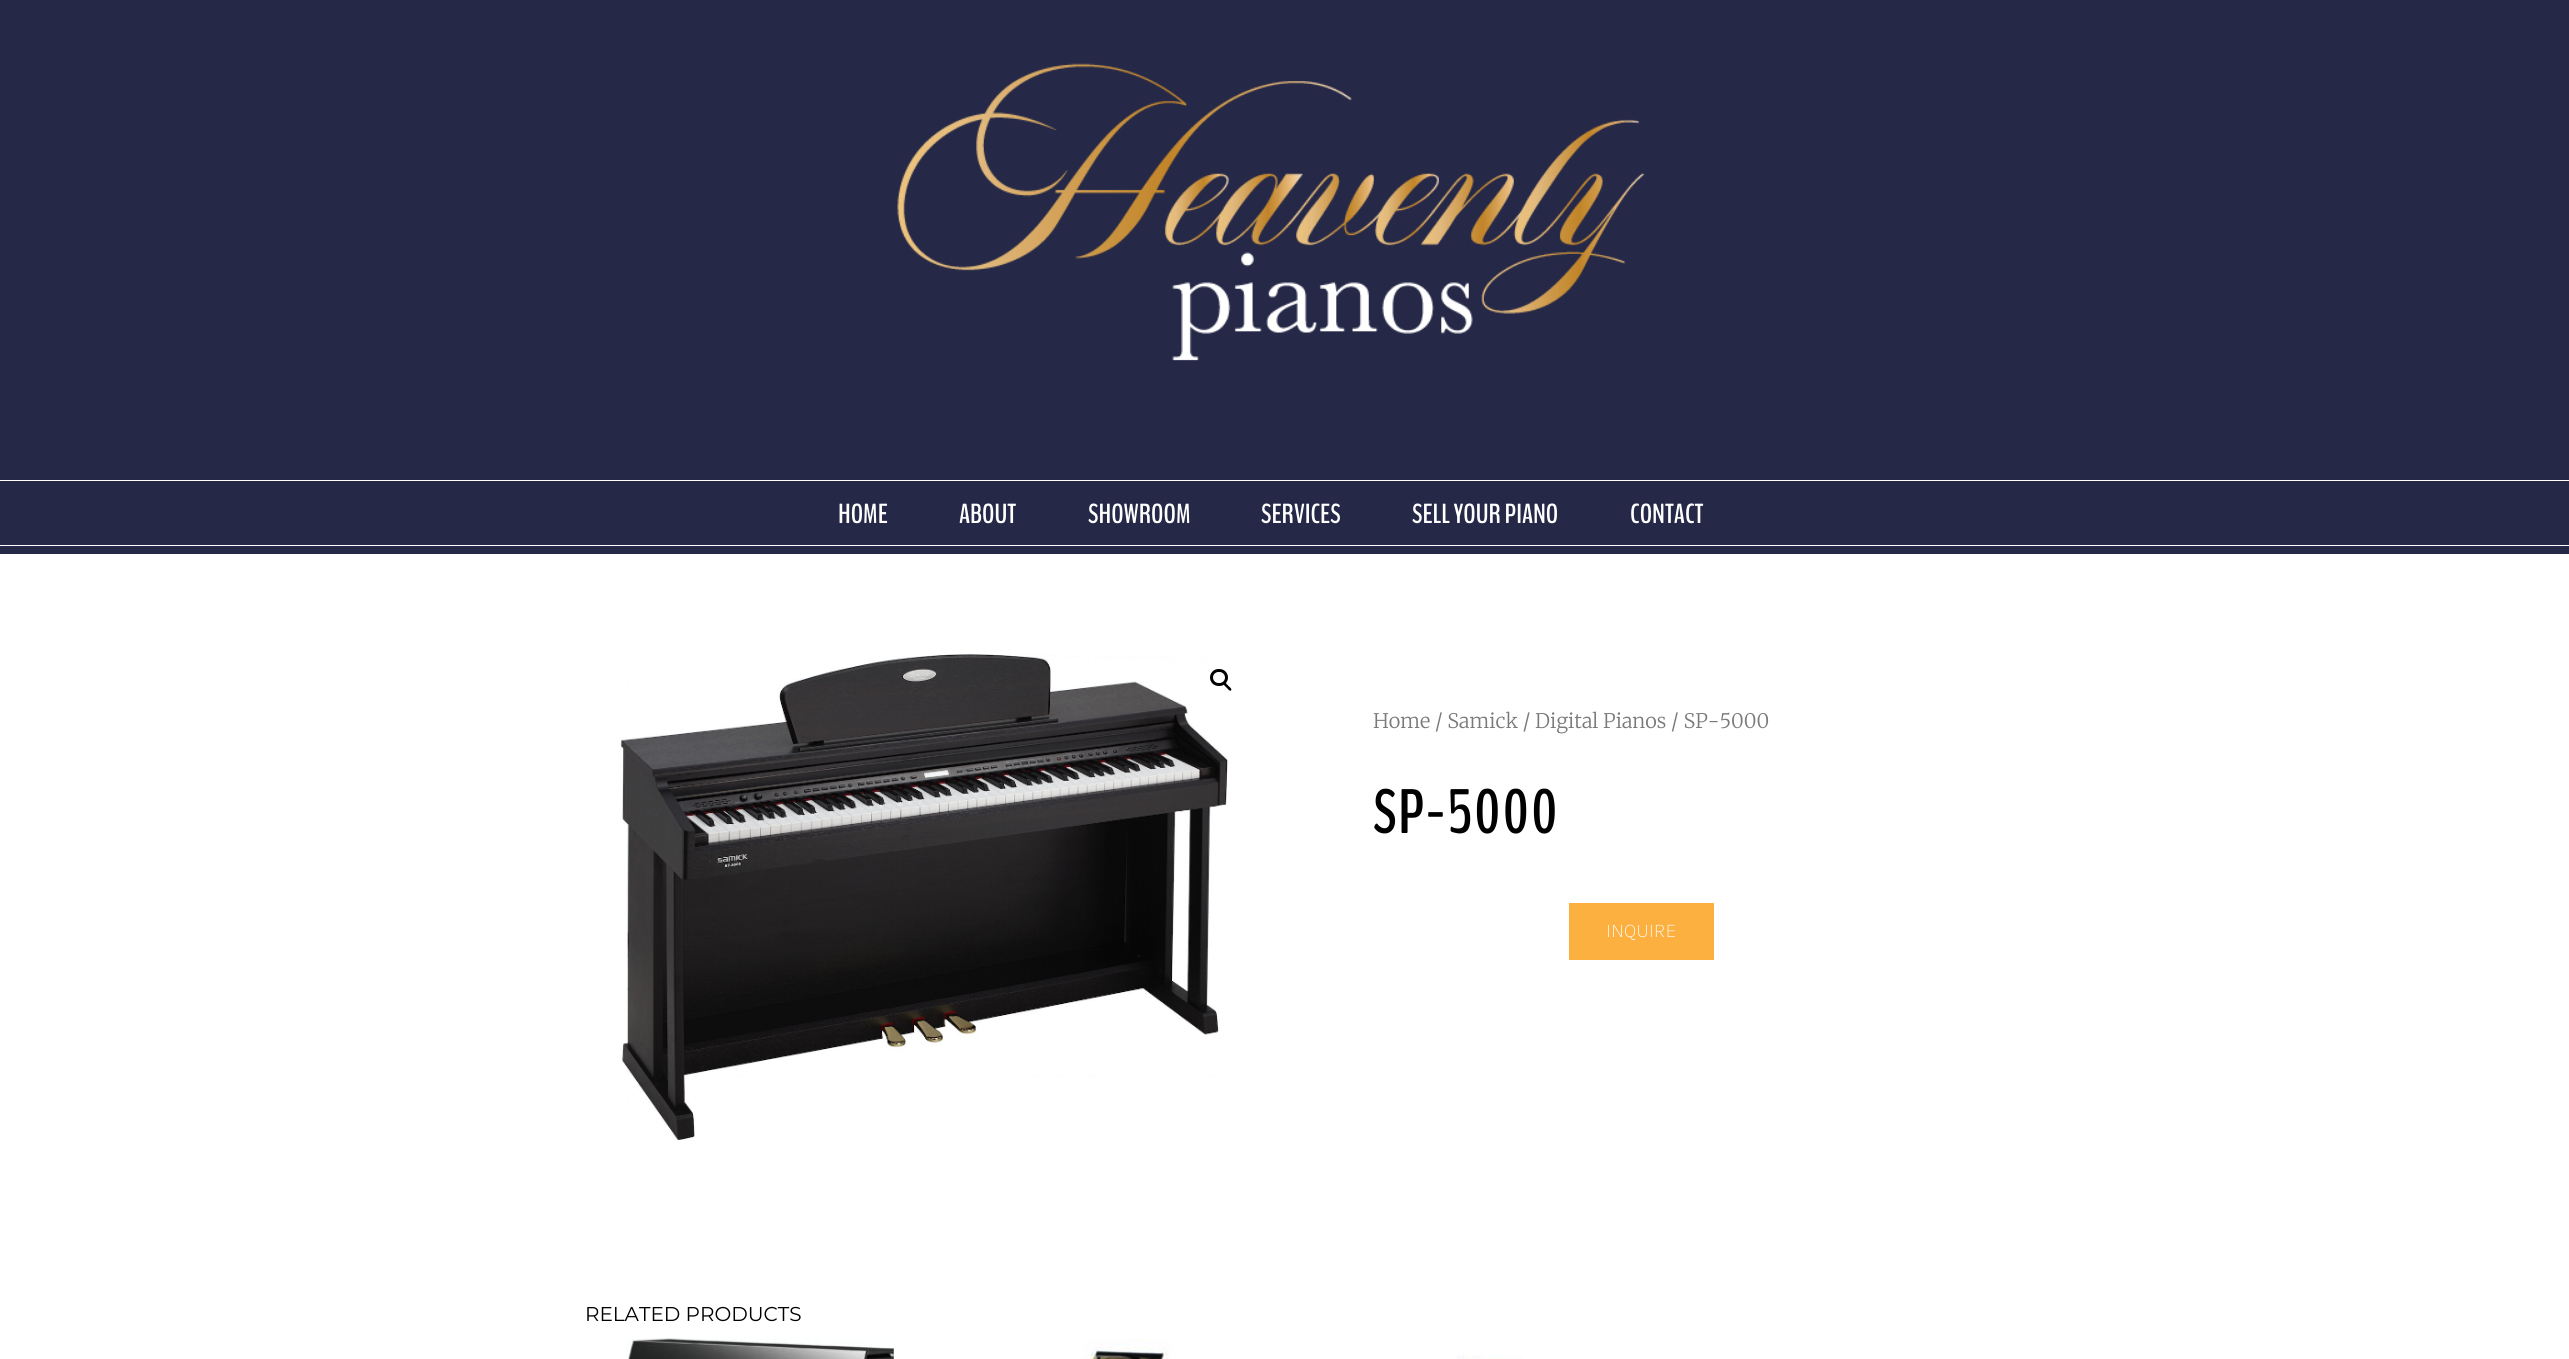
#include <cairo/cairo.h>
#include <math.h>
#include <stddef.h>

typedef struct { double x, y; const char *s; } line_t;
static cairo_t *cr;

static void rgb(unsigned color)
{
	cairo_set_source_rgb(cr, (color >> 16) / 255.0, (color >> 8 & 255) / 255.0, (color & 255) / 255.0);
}

static void tracked(double x, double y, const char *s, double letter, double word)
{
	cairo_move_to(cr, x, y);
	while (*s) {
		char ch[5] = {0};
		int n = 0;
		do ch[n++] = *s++; while ((*s & 0xC0) == 0x80);
		cairo_show_text(cr, ch);
		cairo_rel_move_to(cr, letter + word * (*ch == ' '), 0);
	}
}

static void rrect(double x, double y, double w, double h, double r)
{
	cairo_new_sub_path(cr);
	cairo_arc(cr, x + w - r, y + h - r, r, 0, M_PI / 2);
	cairo_arc(cr, x + r, y + h - r, r, M_PI / 2, M_PI);
	cairo_arc(cr, x + r, y + r, r, M_PI, 1.5 * M_PI);
	cairo_arc(cr, x + w - r, y + r, r, 1.5 * M_PI, 2 * M_PI);
	cairo_close_path(cr);
}

static void image(const char *path, double x, double y, double w, double h)
{
	cairo_surface_t *image = cairo_image_surface_create_from_png(path);
	cairo_save(cr);
	cairo_set_source_surface(cr, image, x, y);
	cairo_rectangle(cr, x, y, w, h);
	cairo_fill(cr);
	cairo_restore(cr);
	cairo_surface_destroy(image);
}

int main(void) {
	cairo_surface_t *surface = cairo_image_surface_create(CAIRO_FORMAT_RGB24, 2569, 1359);
	cr = cairo_create(surface);
	cairo_font_options_t *options = cairo_font_options_create();
	cairo_font_options_set_hint_metrics(options, CAIRO_HINT_METRICS_OFF);
	cairo_font_options_set_hint_style(options, CAIRO_HINT_STYLE_NONE);
	cairo_set_font_options(cr, options);
	cairo_set_miter_limit(cr, 4);
	rgb(0xffffff);
	cairo_paint(cr);
	rgb(0x252847);
	cairo_rectangle(cr, 0, 0, 2569, 554);
	cairo_fill(cr);
	image("img/1.png", 897, 63, 748, 298);
	rgb(0xffffff);
	cairo_rectangle(cr, 0, 480, 2569, 1);
	cairo_fill(cr);
	cairo_rectangle(cr, 0, 545, 2569, 1);
	cairo_fill(cr);
	image("img/2.png", 620, 654, 608, 487);
	cairo_arc(cr, 1221.5, 680.5, 22.5, 0, 2 * M_PI);
	cairo_fill(cr);
	rrect(1211.5, 670.5, 15, 14, 7);
	rgb(0x000000);
	cairo_set_line_width(cr, 3);
	cairo_stroke(cr);
	cairo_new_path(cr);
	cairo_move_to(cr, 1224, 683);
	cairo_curve_to(cr, 1225.5, 682, 1227.5, 685, 1228.5, 686);
	cairo_curve_to(cr, 1229, 686.5, 1232.5, 689, 1231, 690.5);
	cairo_curve_to(cr, 1229.5, 691.5, 1227.5, 688.5, 1226.5, 687.5);
	cairo_curve_to(cr, 1226, 687, 1222.5, 684.5, 1224, 683);
	cairo_close_path(cr);
	cairo_fill(cr);
	rgb(0xfbb040);
	cairo_rectangle(cr, 1569, 903, 145, 57);
	cairo_fill(cr);
	image("img/3.png", 627, 1338, 267, 21);
	image("img/4.png", 1083, 1339, 90, 20);
	image("img/5.png", 1457, 1355, 66, 4);
	cairo_select_font_face(cr, "BenchNine", CAIRO_FONT_SLANT_NORMAL, CAIRO_FONT_WEIGHT_BOLD);
	cairo_set_font_size(cr, 27.5);
	rgb(0xffffff);
	{
		static const line_t items[] = {
			{838, 523, "HOME"},
			{959, 523, "ABOUT"},
			{1088, 523, "SHOWROOM"},
			{1261, 523, "SERVICES"},
			{1412, 523, "SELL YOUR PIANO"},
			{1630, 523, "CONTACT"},
		};
		for (size_t i = 0; i < sizeof items / sizeof *items; i++) {
			cairo_move_to(cr, items[i].x, items[i].y);
			cairo_show_text(cr, items[i].s);
		}
	}
	cairo_select_font_face(cr, "Merriweather Light", CAIRO_FONT_SLANT_NORMAL, CAIRO_FONT_WEIGHT_NORMAL);
	cairo_set_font_size(cr, 20);
	rgb(0x7a7a7a);
	cairo_move_to(cr, 1373, 728);
	cairo_show_text(cr, "Home / Samick / Digital Pianos / SP-5000");
	cairo_select_font_face(cr, "BenchNine", CAIRO_FONT_SLANT_NORMAL, CAIRO_FONT_WEIGHT_BOLD);
	cairo_set_font_size(cr, 62.5);
	rgb(0x000000);
	tracked(1373, 833, "SP-5000", 1.25, 0);
	cairo_select_font_face(cr, "Karla ExtraLight", CAIRO_FONT_SLANT_NORMAL, CAIRO_FONT_WEIGHT_NORMAL);
	cairo_set_font_size(cr, 20);
	rgb(0xffffff);
	cairo_move_to(cr, 1606, 937);
	cairo_show_text(cr, "INQUIRE");
	cairo_select_font_face(cr, "Montserrat", CAIRO_FONT_SLANT_NORMAL, CAIRO_FONT_WEIGHT_NORMAL);
	rgb(0x000000);
	cairo_move_to(cr, 585, 1321);
	cairo_show_text(cr, "RELATED PRODUCTS");
	cairo_surface_write_to_png(surface, "page.png");
	cairo_font_options_destroy(options);
	cairo_destroy(cr);
	cairo_surface_destroy(surface);
	return 0;
}
